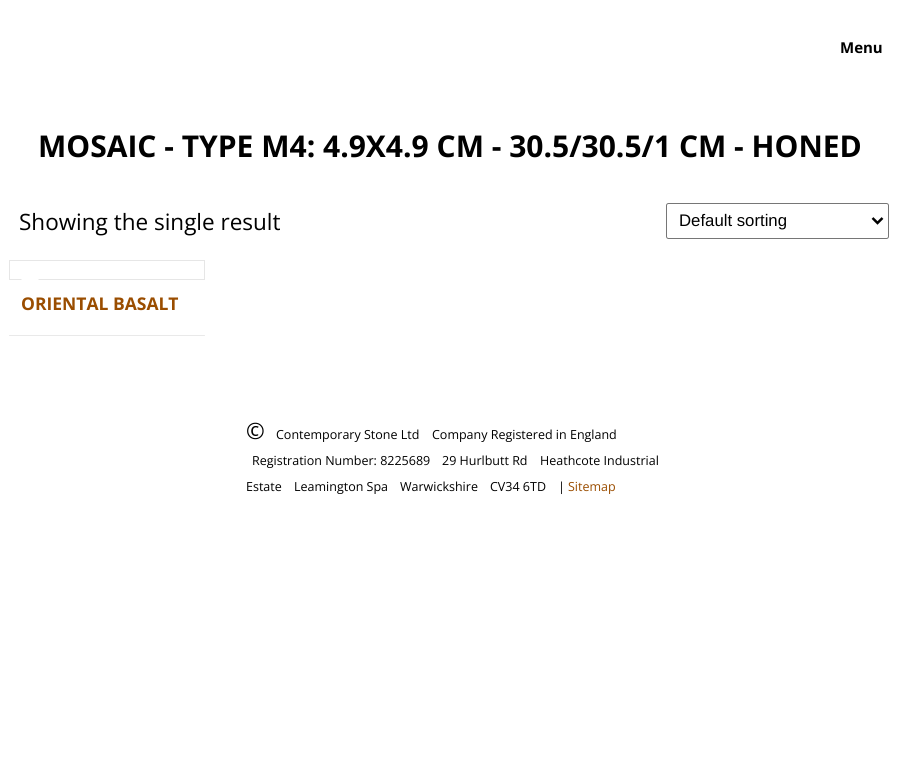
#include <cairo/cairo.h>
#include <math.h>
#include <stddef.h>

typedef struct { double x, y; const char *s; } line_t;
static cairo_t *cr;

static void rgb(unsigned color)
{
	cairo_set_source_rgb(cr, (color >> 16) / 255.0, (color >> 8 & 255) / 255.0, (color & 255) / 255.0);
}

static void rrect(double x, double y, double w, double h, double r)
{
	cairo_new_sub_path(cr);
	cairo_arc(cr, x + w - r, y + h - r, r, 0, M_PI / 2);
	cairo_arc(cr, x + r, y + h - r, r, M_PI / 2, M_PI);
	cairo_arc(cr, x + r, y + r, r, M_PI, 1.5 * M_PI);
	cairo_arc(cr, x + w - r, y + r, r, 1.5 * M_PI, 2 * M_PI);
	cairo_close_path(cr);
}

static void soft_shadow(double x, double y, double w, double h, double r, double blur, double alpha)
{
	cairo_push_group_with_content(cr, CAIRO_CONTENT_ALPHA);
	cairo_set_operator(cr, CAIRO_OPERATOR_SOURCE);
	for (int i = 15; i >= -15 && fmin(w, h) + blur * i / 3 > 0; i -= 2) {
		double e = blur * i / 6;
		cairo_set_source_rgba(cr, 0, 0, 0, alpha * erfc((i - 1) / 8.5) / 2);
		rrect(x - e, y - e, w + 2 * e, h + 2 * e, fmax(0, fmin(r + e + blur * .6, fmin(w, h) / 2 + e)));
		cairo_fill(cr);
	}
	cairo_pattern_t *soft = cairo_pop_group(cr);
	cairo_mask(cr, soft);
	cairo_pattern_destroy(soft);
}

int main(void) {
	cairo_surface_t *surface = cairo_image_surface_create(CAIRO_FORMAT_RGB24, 907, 777);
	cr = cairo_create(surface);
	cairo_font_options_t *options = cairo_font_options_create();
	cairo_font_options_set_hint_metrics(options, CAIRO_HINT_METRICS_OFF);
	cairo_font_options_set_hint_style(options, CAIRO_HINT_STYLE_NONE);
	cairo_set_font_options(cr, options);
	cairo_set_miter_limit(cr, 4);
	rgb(0xffffff);
	cairo_paint(cr);
	rrect(666.5, 203.5, 222, 35, 2);
	rgb(0x767676);
	cairo_set_line_width(cr, 1);
	cairo_stroke(cr);
	cairo_new_path(cr);
	cairo_move_to(cr, 872.5, 218);
	cairo_line_to(cr, 877.5, 223);
	cairo_line_to(cr, 882.5, 218);
	rgb(0x000000);
	cairo_set_line_width(cr, 2.5);
	cairo_stroke(cr);
	cairo_save(cr);
	cairo_rectangle(cr, 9, 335, 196, 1);
	cairo_clip(cr);
	rgb(0x000000);
	soft_shadow(9, 261, 196, 75, 0, 0.5, 0.1);
	cairo_restore(cr);
	cairo_rectangle(cr, 9.5, 260.5, 195, 19);
	rgb(0xe6e6e6);
	cairo_set_line_width(cr, 1);
	cairo_stroke(cr);
	rgb(0xffffff);
	cairo_new_path(cr);
	cairo_move_to(cr, 39, 280);
	cairo_line_to(cr, 21, 280);
	cairo_line_to(cr, 30, 271);
	cairo_close_path(cr);
	cairo_fill(cr);
	cairo_select_font_face(cr, "Open Sans", CAIRO_FONT_SLANT_NORMAL, CAIRO_FONT_WEIGHT_BOLD);
	cairo_set_font_size(cr, 15);
	rgb(0x000000);
	cairo_move_to(cr, 840, 53);
	cairo_show_text(cr, "Menu");
	cairo_set_font_size(cr, 30);
	cairo_move_to(cr, 38, 157);
	cairo_show_text(cr, "MOSAIC - TYPE M4: 4.9X4.9 CM - 30.5/30.5/1 CM - HONED");
	cairo_select_font_face(cr, "Open Sans", CAIRO_FONT_SLANT_NORMAL, CAIRO_FONT_WEIGHT_NORMAL);
	cairo_set_font_size(cr, 22.5);
	cairo_move_to(cr, 19, 230);
	cairo_show_text(cr, "Showing the single result");
	cairo_select_font_face(cr, "Liberation Sans", CAIRO_FONT_SLANT_NORMAL, CAIRO_FONT_WEIGHT_NORMAL);
	cairo_set_font_size(cr, 16.75);
	cairo_move_to(cr, 679, 226);
	cairo_show_text(cr, "Default sorting");
	cairo_select_font_face(cr, "Open Sans", CAIRO_FONT_SLANT_NORMAL, CAIRO_FONT_WEIGHT_BOLD);
	cairo_set_font_size(cr, 17.5);
	rgb(0x9a4d00);
	cairo_move_to(cr, 21, 310);
	cairo_show_text(cr, "ORIENTAL BASALT");
	cairo_select_font_face(cr, "Open Sans", CAIRO_FONT_SLANT_NORMAL, CAIRO_FONT_WEIGHT_NORMAL);
	cairo_set_font_size(cr, 22.5);
	rgb(0x000000);
	cairo_move_to(cr, 246, 439);
	cairo_show_text(cr, "©");
	cairo_set_font_size(cr, 12.5);
	{
		static const line_t items[] = {
			{276, 439, "Contemporary Stone Ltd"},
			{432, 439, "Company Registered in England"},
			{252, 465, "Registration Number: 8225689"},
			{442, 465, "29 Hurlbutt Rd"},
			{540, 465, "Heathcote Industrial"},
			{246, 491, "Estate"},
			{294, 491, "Leamington Spa"},
			{400, 491, "Warwickshire"},
			{490, 491, "CV34 6TD"},
			{558, 491, "|"},
		};
		for (size_t i = 0; i < sizeof items / sizeof *items; i++) {
			cairo_move_to(cr, items[i].x, items[i].y);
			cairo_show_text(cr, items[i].s);
		}
	}
	rgb(0x9a4d00);
	cairo_move_to(cr, 568, 491);
	cairo_show_text(cr, "Sitemap");
	cairo_surface_write_to_png(surface, "page.png");
	cairo_font_options_destroy(options);
	cairo_destroy(cr);
	cairo_surface_destroy(surface);
	return 0;
}
